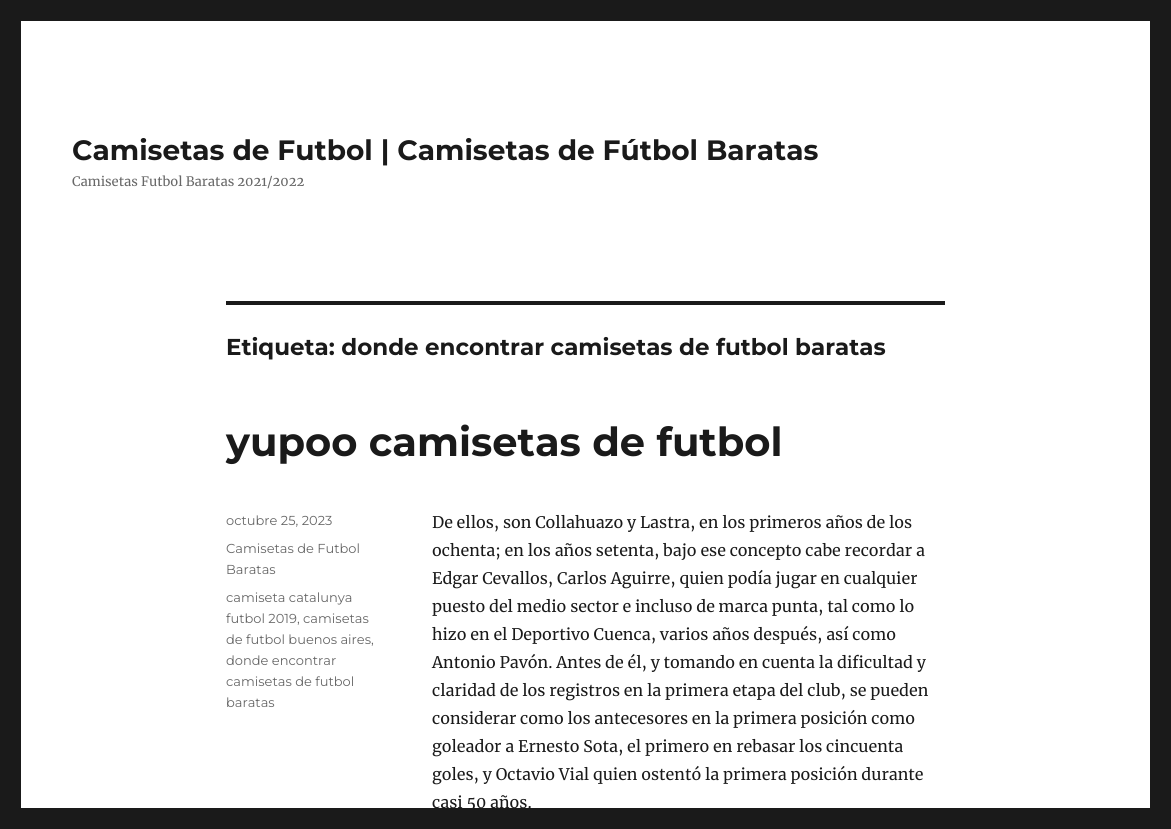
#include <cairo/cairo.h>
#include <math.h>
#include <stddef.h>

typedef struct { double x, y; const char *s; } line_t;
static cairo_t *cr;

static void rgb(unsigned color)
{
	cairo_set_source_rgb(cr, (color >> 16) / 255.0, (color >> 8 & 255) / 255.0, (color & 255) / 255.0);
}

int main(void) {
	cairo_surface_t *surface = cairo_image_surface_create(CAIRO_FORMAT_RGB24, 1171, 829);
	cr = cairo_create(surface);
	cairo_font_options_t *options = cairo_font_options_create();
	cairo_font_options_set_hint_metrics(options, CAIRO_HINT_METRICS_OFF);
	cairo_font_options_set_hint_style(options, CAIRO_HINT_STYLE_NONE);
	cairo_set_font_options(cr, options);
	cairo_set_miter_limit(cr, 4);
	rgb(0x1a1a1a);
	cairo_paint(cr);
	rgb(0xffffff);
	cairo_rectangle(cr, 21, 21, 1129, 787);
	cairo_fill(cr);
	rgb(0x1a1a1a);
	cairo_rectangle(cr, 226, 301, 719, 4);
	cairo_fill(cr);
	cairo_select_font_face(cr, "Montserrat Thin", CAIRO_FONT_SLANT_NORMAL, CAIRO_FONT_WEIGHT_NORMAL);
	cairo_set_font_size(cr, 28);
	cairo_move_to(cr, 72, 160);
	cairo_show_text(cr, "Camisetas de Futbol | Camisetas de Fútbol Baratas");
	cairo_select_font_face(cr, "Merriweather", CAIRO_FONT_SLANT_NORMAL, CAIRO_FONT_WEIGHT_NORMAL);
	cairo_set_font_size(cr, 13);
	rgb(0x686868);
	cairo_move_to(cr, 72, 186);
	cairo_show_text(cr, "Camisetas Futbol Baratas 2021/2022");
	cairo_select_font_face(cr, "Montserrat Thin", CAIRO_FONT_SLANT_NORMAL, CAIRO_FONT_WEIGHT_NORMAL);
	cairo_set_font_size(cr, 23);
	rgb(0x1a1a1a);
	cairo_move_to(cr, 226, 355);
	cairo_show_text(cr, "Etiqueta: donde encontrar camisetas de futbol baratas");
	cairo_set_font_size(cr, 40);
	cairo_move_to(cr, 226, 456);
	cairo_show_text(cr, "yupoo camisetas de futbol");
	cairo_select_font_face(cr, "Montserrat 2 Thin", CAIRO_FONT_SLANT_NORMAL, CAIRO_FONT_WEIGHT_NORMAL);
	cairo_set_font_size(cr, 13);
	rgb(0x686868);
	{
		static const line_t items[] = {
			{226, 525, "octubre 25, 2023"},
			{226, 553, "Camisetas de Futbol"},
			{226, 574, "Baratas"},
			{226, 602, "camiseta catalunya"},
			{226, 623, "futbol 2019, camisetas"},
			{226, 644, "de futbol buenos aires,"},
			{226, 665, "donde encontrar"},
			{226, 686, "camisetas de futbol"},
			{226, 707, "baratas"},
		};
		for (size_t i = 0; i < sizeof items / sizeof *items; i++) {
			cairo_move_to(cr, items[i].x, items[i].y);
			cairo_show_text(cr, items[i].s);
		}
	}
	cairo_select_font_face(cr, "Merriweather", CAIRO_FONT_SLANT_NORMAL, CAIRO_FONT_WEIGHT_NORMAL);
	cairo_set_font_size(cr, 16);
	rgb(0x1a1a1a);
	{
		static const line_t items[] = {
			{432, 528, "De ellos, son Collahuazo y Lastra, en los primeros años de los"},
			{432, 556, "ochenta; en los años setenta, bajo ese concepto cabe recordar a"},
			{432, 584, "Edgar Cevallos, Carlos Aguirre, quien podía jugar en cualquier"},
			{432, 612, "puesto del medio sector e incluso de marca punta, tal como lo"},
			{432, 640, "hizo en el Deportivo Cuenca, varios años después, así como"},
			{432, 668, "Antonio Pavón. Antes de él, y tomando en cuenta la dificultad y"},
			{432, 696, "claridad de los registros en la primera etapa del club, se pueden"},
			{432, 724, "considerar como los antecesores en la primera posición como"},
			{432, 752, "goleador a Ernesto Sota, el primero en rebasar los cincuenta"},
			{432, 780, "goles, y Octavio Vial quien ostentó la primera posición durante"},
			{432, 808, "casi 50 años."},
		};
		for (size_t i = 0; i < sizeof items / sizeof *items; i++) {
			cairo_move_to(cr, items[i].x, items[i].y);
			cairo_show_text(cr, items[i].s);
		}
	}
	cairo_surface_write_to_png(surface, "page.png");
	cairo_font_options_destroy(options);
	cairo_destroy(cr);
	cairo_surface_destroy(surface);
	return 0;
}
